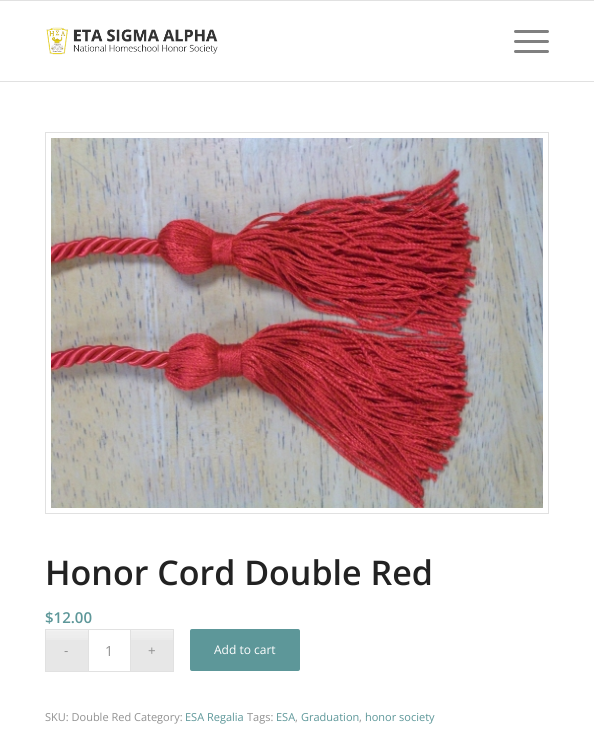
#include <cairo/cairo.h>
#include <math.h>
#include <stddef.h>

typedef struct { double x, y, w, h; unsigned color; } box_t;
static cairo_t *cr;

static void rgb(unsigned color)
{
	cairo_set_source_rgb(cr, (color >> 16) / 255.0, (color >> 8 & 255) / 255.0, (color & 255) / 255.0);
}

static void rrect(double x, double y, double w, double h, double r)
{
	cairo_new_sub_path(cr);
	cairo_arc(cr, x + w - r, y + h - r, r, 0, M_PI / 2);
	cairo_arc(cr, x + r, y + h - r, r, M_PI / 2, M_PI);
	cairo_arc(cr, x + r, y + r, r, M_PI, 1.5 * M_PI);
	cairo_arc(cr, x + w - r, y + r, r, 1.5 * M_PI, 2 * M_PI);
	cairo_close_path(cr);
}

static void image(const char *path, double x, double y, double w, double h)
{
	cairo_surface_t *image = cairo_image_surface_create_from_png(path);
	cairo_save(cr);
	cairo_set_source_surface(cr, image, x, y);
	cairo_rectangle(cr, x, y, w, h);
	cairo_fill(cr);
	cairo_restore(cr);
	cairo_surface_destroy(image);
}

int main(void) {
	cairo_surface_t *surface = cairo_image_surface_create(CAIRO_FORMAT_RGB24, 594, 733);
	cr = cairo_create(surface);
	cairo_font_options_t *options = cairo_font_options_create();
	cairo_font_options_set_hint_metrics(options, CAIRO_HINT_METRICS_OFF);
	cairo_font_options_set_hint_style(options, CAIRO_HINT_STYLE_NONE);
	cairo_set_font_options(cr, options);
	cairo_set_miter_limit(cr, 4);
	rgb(0xffffff);
	cairo_paint(cr);
	rgb(0xe1e1e1);
	cairo_rectangle(cr, 0, 0, 594, 1);
	cairo_fill(cr);
	cairo_rectangle(cr, 0, 81, 594, 1);
	cairo_fill(cr);
	image("img/1.png", 46, 27, 172, 28);
	rgb(0x808080);
	rrect(514, 40, 35, 3, 1.5);
	cairo_fill(cr);
	rrect(514, 30, 35, 3, 1.5);
	cairo_fill(cr);
	rrect(514, 50, 35, 3, 1.5);
	cairo_fill(cr);
	cairo_rectangle(cr, 45.5, 132.5, 503, 381);
	rgb(0xe1e1e1);
	cairo_set_line_width(cr, 1);
	cairo_stroke(cr);
	image("img/2.png", 51, 138, 492, 370);
	rgb(0xe7e7e7);
	cairo_rectangle(cr, 46, 630, 42, 41);
	cairo_fill(cr);
	image("img/3.png", 46, 630, 42, 10);
	cairo_rectangle(cr, 131, 630, 42, 41);
	cairo_fill(cr);
	image("img/3.png", 131, 630, 42, 10);
	{
		static const box_t items[] = {
			{45, 629, 43, 1, 0xe1e1e1},
			{45, 671, 43, 1, 0xe1e1e1},
			{45, 629, 1, 43, 0xe1e1e1},
		};
		for (size_t i = 0; i < sizeof items / sizeof *items; i++) {
			rgb(items[i].color);
			cairo_rectangle(cr, items[i].x, items[i].y, items[i].w, items[i].h);
			cairo_fill(cr);
		}
	}
	cairo_rectangle(cr, 88.5, 629.5, 42, 42);
	cairo_stroke(cr);
	{
		static const box_t items[] = {
			{131, 629, 43, 1, 0xe1e1e1},
			{173, 629, 1, 43, 0xe1e1e1},
			{131, 671, 43, 1, 0xe1e1e1},
		};
		for (size_t i = 0; i < sizeof items / sizeof *items; i++) {
			rgb(items[i].color);
			cairo_rectangle(cr, items[i].x, items[i].y, items[i].w, items[i].h);
			cairo_fill(cr);
		}
	}
	rgb(0x5d9799);
	rrect(190, 629, 110, 42, 2);
	cairo_fill(cr);
	cairo_select_font_face(cr, "Open Sans SemiBold", CAIRO_FONT_SLANT_NORMAL, CAIRO_FONT_WEIGHT_NORMAL);
	cairo_set_font_size(cr, 34);
	rgb(0x222222);
	cairo_move_to(cr, 45, 585);
	cairo_show_text(cr, "Honor Cord Double Red");
	cairo_set_font_size(cr, 15);
	rgb(0x5d9799);
	cairo_move_to(cr, 45, 623);
	cairo_show_text(cr, "$12.00");
	cairo_select_font_face(cr, "Liberation Sans", CAIRO_FONT_SLANT_NORMAL, CAIRO_FONT_WEIGHT_NORMAL);
	cairo_set_font_size(cr, 13);
	rgb(0x919191);
	cairo_move_to(cr, 64, 655);
	cairo_show_text(cr, "-");
	cairo_select_font_face(cr, "Open Sans", CAIRO_FONT_SLANT_NORMAL, CAIRO_FONT_WEIGHT_NORMAL);
	cairo_set_font_size(cr, 14);
	cairo_move_to(cr, 105, 656);
	cairo_show_text(cr, "1");
	cairo_select_font_face(cr, "Liberation Sans", CAIRO_FONT_SLANT_NORMAL, CAIRO_FONT_WEIGHT_NORMAL);
	cairo_set_font_size(cr, 13);
	cairo_move_to(cr, 148, 655);
	cairo_show_text(cr, "+");
	cairo_select_font_face(cr, "Open Sans", CAIRO_FONT_SLANT_NORMAL, CAIRO_FONT_WEIGHT_NORMAL);
	cairo_set_font_size(cr, 12);
	rgb(0xffffff);
	cairo_move_to(cr, 214, 654);
	cairo_show_text(cr, "Add to cart");
	cairo_set_font_size(cr, 11);
	rgb(0x919191);
	cairo_move_to(cr, 45, 721);
	cairo_show_text(cr, "SKU: Double Red Category:");
	rgb(0x5d9799);
	cairo_move_to(cr, 185, 721);
	cairo_show_text(cr, "ESA Regalia");
	rgb(0x919191);
	cairo_move_to(cr, 247, 721);
	cairo_show_text(cr, "Tags:");
	rgb(0x5d9799);
	cairo_move_to(cr, 276, 721);
	cairo_show_text(cr, "ESA");
	rgb(0x919191);
	cairo_move_to(cr, 295, 721);
	cairo_show_text(cr, ",");
	rgb(0x5d9799);
	cairo_move_to(cr, 301, 721);
	cairo_show_text(cr, "Graduation");
	rgb(0x919191);
	cairo_move_to(cr, 359, 721);
	cairo_show_text(cr, ",");
	rgb(0x5d9799);
	cairo_move_to(cr, 365, 721);
	cairo_show_text(cr, "honor society");
	cairo_surface_write_to_png(surface, "page.png");
	cairo_font_options_destroy(options);
	cairo_destroy(cr);
	cairo_surface_destroy(surface);
	return 0;
}
